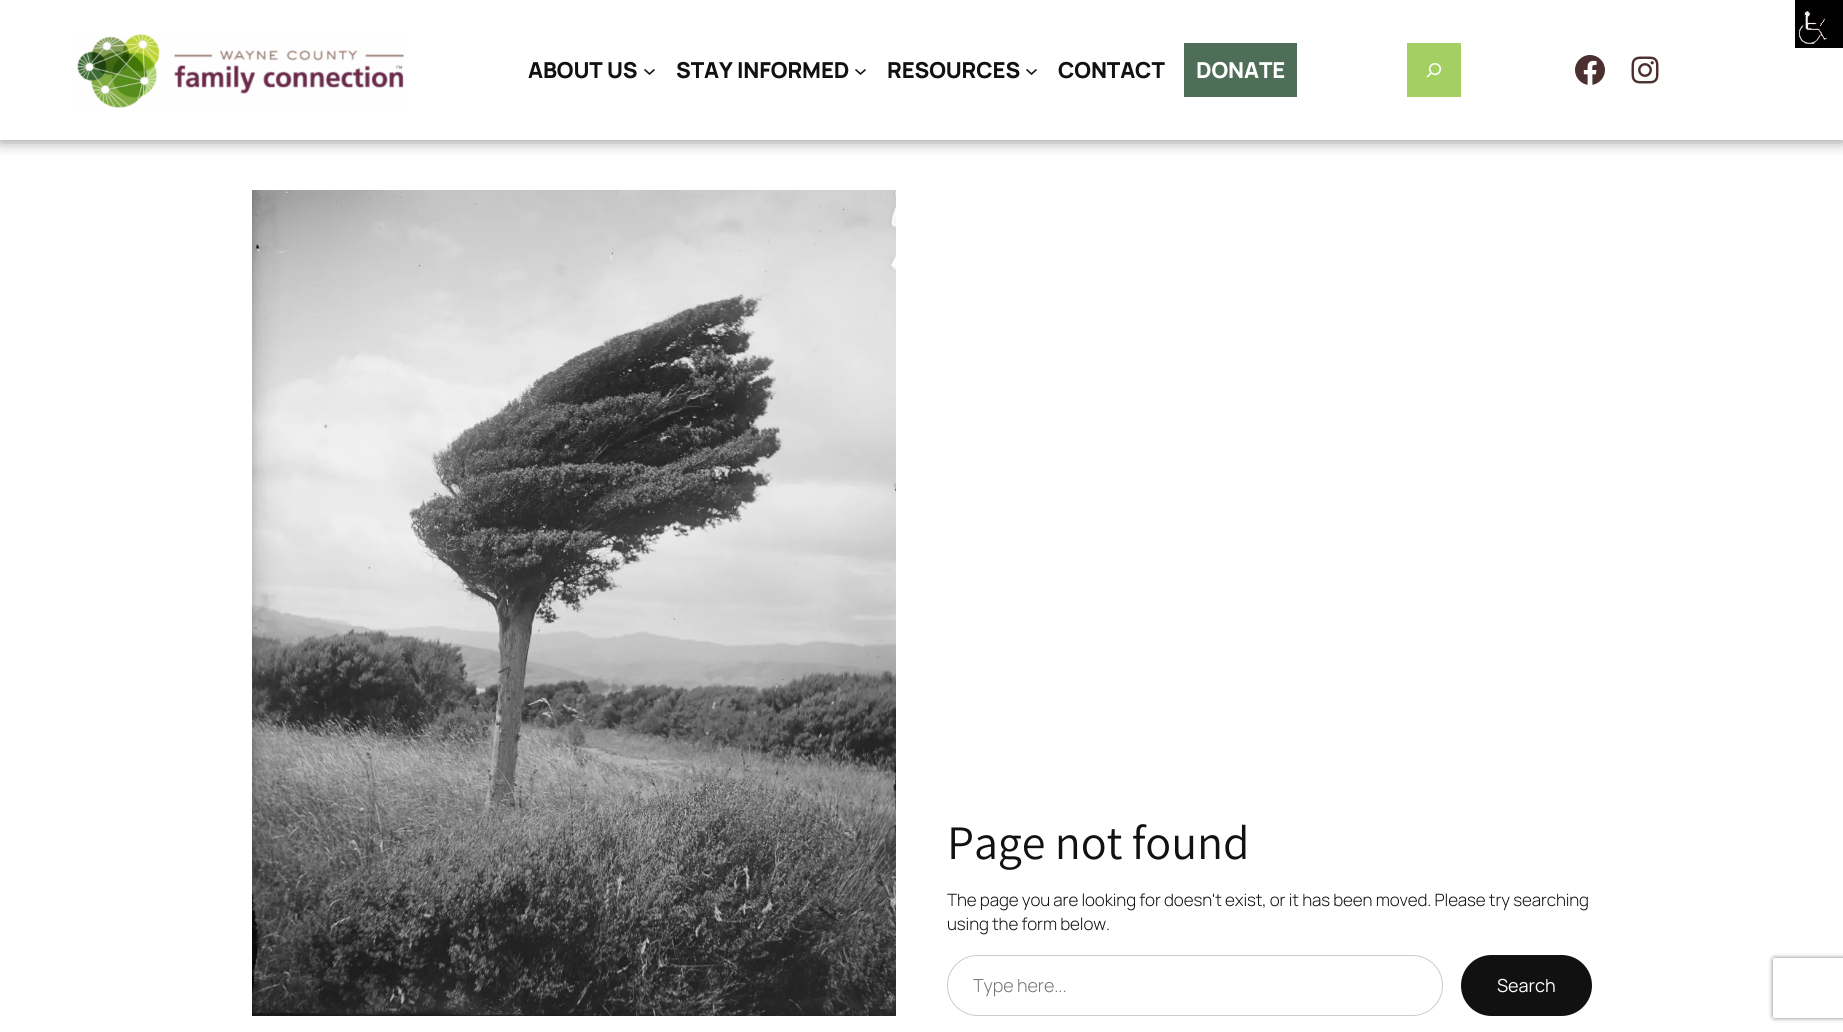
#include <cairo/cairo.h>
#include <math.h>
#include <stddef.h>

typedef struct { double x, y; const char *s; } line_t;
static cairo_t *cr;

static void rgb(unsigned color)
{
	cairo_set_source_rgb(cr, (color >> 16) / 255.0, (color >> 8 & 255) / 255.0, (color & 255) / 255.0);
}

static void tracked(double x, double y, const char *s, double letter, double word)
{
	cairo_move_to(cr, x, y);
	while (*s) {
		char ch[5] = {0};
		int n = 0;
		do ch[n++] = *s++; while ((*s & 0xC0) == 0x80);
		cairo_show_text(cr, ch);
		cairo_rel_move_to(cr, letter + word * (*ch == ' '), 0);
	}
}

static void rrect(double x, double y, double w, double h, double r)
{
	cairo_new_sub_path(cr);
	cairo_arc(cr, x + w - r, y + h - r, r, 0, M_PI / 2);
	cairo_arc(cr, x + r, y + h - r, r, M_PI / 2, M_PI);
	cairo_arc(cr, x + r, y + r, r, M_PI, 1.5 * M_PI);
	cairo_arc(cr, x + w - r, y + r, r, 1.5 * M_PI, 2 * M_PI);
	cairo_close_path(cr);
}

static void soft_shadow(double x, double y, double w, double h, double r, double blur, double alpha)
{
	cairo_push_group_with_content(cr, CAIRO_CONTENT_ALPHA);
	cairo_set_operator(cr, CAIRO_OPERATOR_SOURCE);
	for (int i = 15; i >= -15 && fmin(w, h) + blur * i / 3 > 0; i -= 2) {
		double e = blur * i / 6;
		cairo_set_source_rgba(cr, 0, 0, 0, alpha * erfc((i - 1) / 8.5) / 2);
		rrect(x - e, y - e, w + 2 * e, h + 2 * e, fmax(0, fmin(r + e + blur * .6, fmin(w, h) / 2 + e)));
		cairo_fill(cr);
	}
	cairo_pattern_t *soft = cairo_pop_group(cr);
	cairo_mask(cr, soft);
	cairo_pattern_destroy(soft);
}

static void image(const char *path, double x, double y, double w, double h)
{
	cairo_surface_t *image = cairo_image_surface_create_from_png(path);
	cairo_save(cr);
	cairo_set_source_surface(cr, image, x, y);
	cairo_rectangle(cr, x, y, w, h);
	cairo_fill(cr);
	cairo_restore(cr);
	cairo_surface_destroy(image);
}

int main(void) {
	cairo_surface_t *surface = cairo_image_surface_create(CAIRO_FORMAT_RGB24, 1843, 1032);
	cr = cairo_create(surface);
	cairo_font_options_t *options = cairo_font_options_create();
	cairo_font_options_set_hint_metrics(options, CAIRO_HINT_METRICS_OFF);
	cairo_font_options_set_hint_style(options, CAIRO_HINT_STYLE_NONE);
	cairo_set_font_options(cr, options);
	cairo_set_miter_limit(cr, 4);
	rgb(0xffffff);
	cairo_paint(cr);
	cairo_save(cr);
	cairo_rectangle(cr, 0, 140, 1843, 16);
	cairo_clip(cr);
	rgb(0x808080);
	soft_shadow(0, 0, 1843, 140, 0, 8, 1);
	cairo_restore(cr);
	image("img/1.png", 1795, 0, 48, 48);
	image("img/2.png", 77, 34, 327, 74);
	cairo_new_path(cr);
	cairo_move_to(cr, 644.5, 69.5);
	cairo_line_to(cr, 649.5, 74);
	cairo_line_to(cr, 654.5, 69.5);
	rgb(0x111111);
	cairo_set_line_width(cr, 1.6);
	cairo_stroke(cr);
	cairo_new_path(cr);
	cairo_move_to(cr, 855.5, 69.5);
	cairo_line_to(cr, 860.5, 74);
	cairo_line_to(cr, 865.5, 69.5);
	cairo_stroke(cr);
	cairo_new_path(cr);
	cairo_move_to(cr, 1026.5, 69.5);
	cairo_line_to(cr, 1031.5, 74);
	cairo_line_to(cr, 1036.5, 69.5);
	cairo_stroke(cr);
	rgb(0x4f6e57);
	cairo_rectangle(cr, 1184, 43, 113, 54);
	cairo_fill(cr);
	rgb(0xa4d063);
	cairo_rectangle(cr, 1407, 43, 54, 54);
	cairo_fill(cr);
	image("img/3.png", 1426, 63, 16, 15);
	image("img/4.png", 1575, 55, 30, 30);
	image("img/5.png", 1631, 56, 28, 28);
	image("img/6.png", 252, 190, 644, 826);
	rrect(947.5, 955.5, 495, 60, 30);
	rgb(0xcccccc);
	cairo_set_line_width(cr, 1);
	cairo_stroke(cr);
	rgb(0x111111);
	rrect(1461, 955, 131, 61, 30.5);
	cairo_fill(cr);
	cairo_save(cr);
	cairo_set_fill_rule(cr, CAIRO_FILL_RULE_EVEN_ODD);
	cairo_new_path(cr);
	cairo_move_to(cr, 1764, 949);
	cairo_line_to(cr, 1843, 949);
	cairo_line_to(cr, 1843, 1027);
	cairo_line_to(cr, 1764, 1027);
	cairo_close_path(cr);
	cairo_move_to(cr, 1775, 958);
	cairo_line_to(cr, 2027, 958);
	cairo_curve_to(cr, 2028, 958, 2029, 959, 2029, 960);
	cairo_line_to(cr, 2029, 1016);
	cairo_curve_to(cr, 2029, 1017, 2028, 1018, 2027, 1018);
	cairo_line_to(cr, 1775, 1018);
	cairo_curve_to(cr, 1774, 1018, 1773, 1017, 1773, 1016);
	cairo_line_to(cr, 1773, 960);
	cairo_curve_to(cr, 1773, 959, 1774, 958, 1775, 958);
	cairo_close_path(cr);
	cairo_clip(cr);
	rgb(0x808080);
	soft_shadow(1773, 958, 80, 60, 2, 2.5, 1);
	cairo_restore(cr);
	cairo_select_font_face(cr, "Manrope ExtraBold", CAIRO_FONT_SLANT_NORMAL, CAIRO_FONT_WEIGHT_NORMAL);
	cairo_set_font_size(cr, 22);
	{
		static const line_t items[] = {
			{528, 78, "ABOUT US"},
			{676, 78, "STAY INFORMED"},
			{887, 78, "RESOURCES"},
			{1058, 78, "CONTACT"},
		};
		for (size_t i = 0; i < sizeof items / sizeof *items; i++) {
			tracked(items[i].x, items[i].y, items[i].s, -0.1, 0);
		}
	}
	rgb(0xffffff);
	tracked(1196, 78, "DONATE", -0.1, 0);
	cairo_select_font_face(cr, "Assistant", CAIRO_FONT_SLANT_NORMAL, CAIRO_FONT_WEIGHT_NORMAL);
	cairo_set_font_size(cr, 48);
	rgb(0x111111);
	tracked(947, 859, "Page not found", -0.1, 0);
	cairo_select_font_face(cr, "Manrope Light", CAIRO_FONT_SLANT_NORMAL, CAIRO_FONT_WEIGHT_NORMAL);
	cairo_set_font_size(cr, 17);
	tracked(947, 906, "The page you are looking for doesn't exist, or it has been moved. Please try searching", -0.1, 0);
	tracked(947, 930, "using the form below.", -0.1, 0);
	cairo_set_font_size(cr, 18);
	rgb(0x757575);
	tracked(973, 992, "Type here...", -0.1, 0);
	cairo_select_font_face(cr, "Manrope", CAIRO_FONT_SLANT_NORMAL, CAIRO_FONT_WEIGHT_NORMAL);
	rgb(0xffffff);
	cairo_move_to(cr, 1497, 992);
	cairo_show_text(cr, "Search");
	cairo_surface_write_to_png(surface, "page.png");
	cairo_font_options_destroy(options);
	cairo_destroy(cr);
	cairo_surface_destroy(surface);
	return 0;
}
